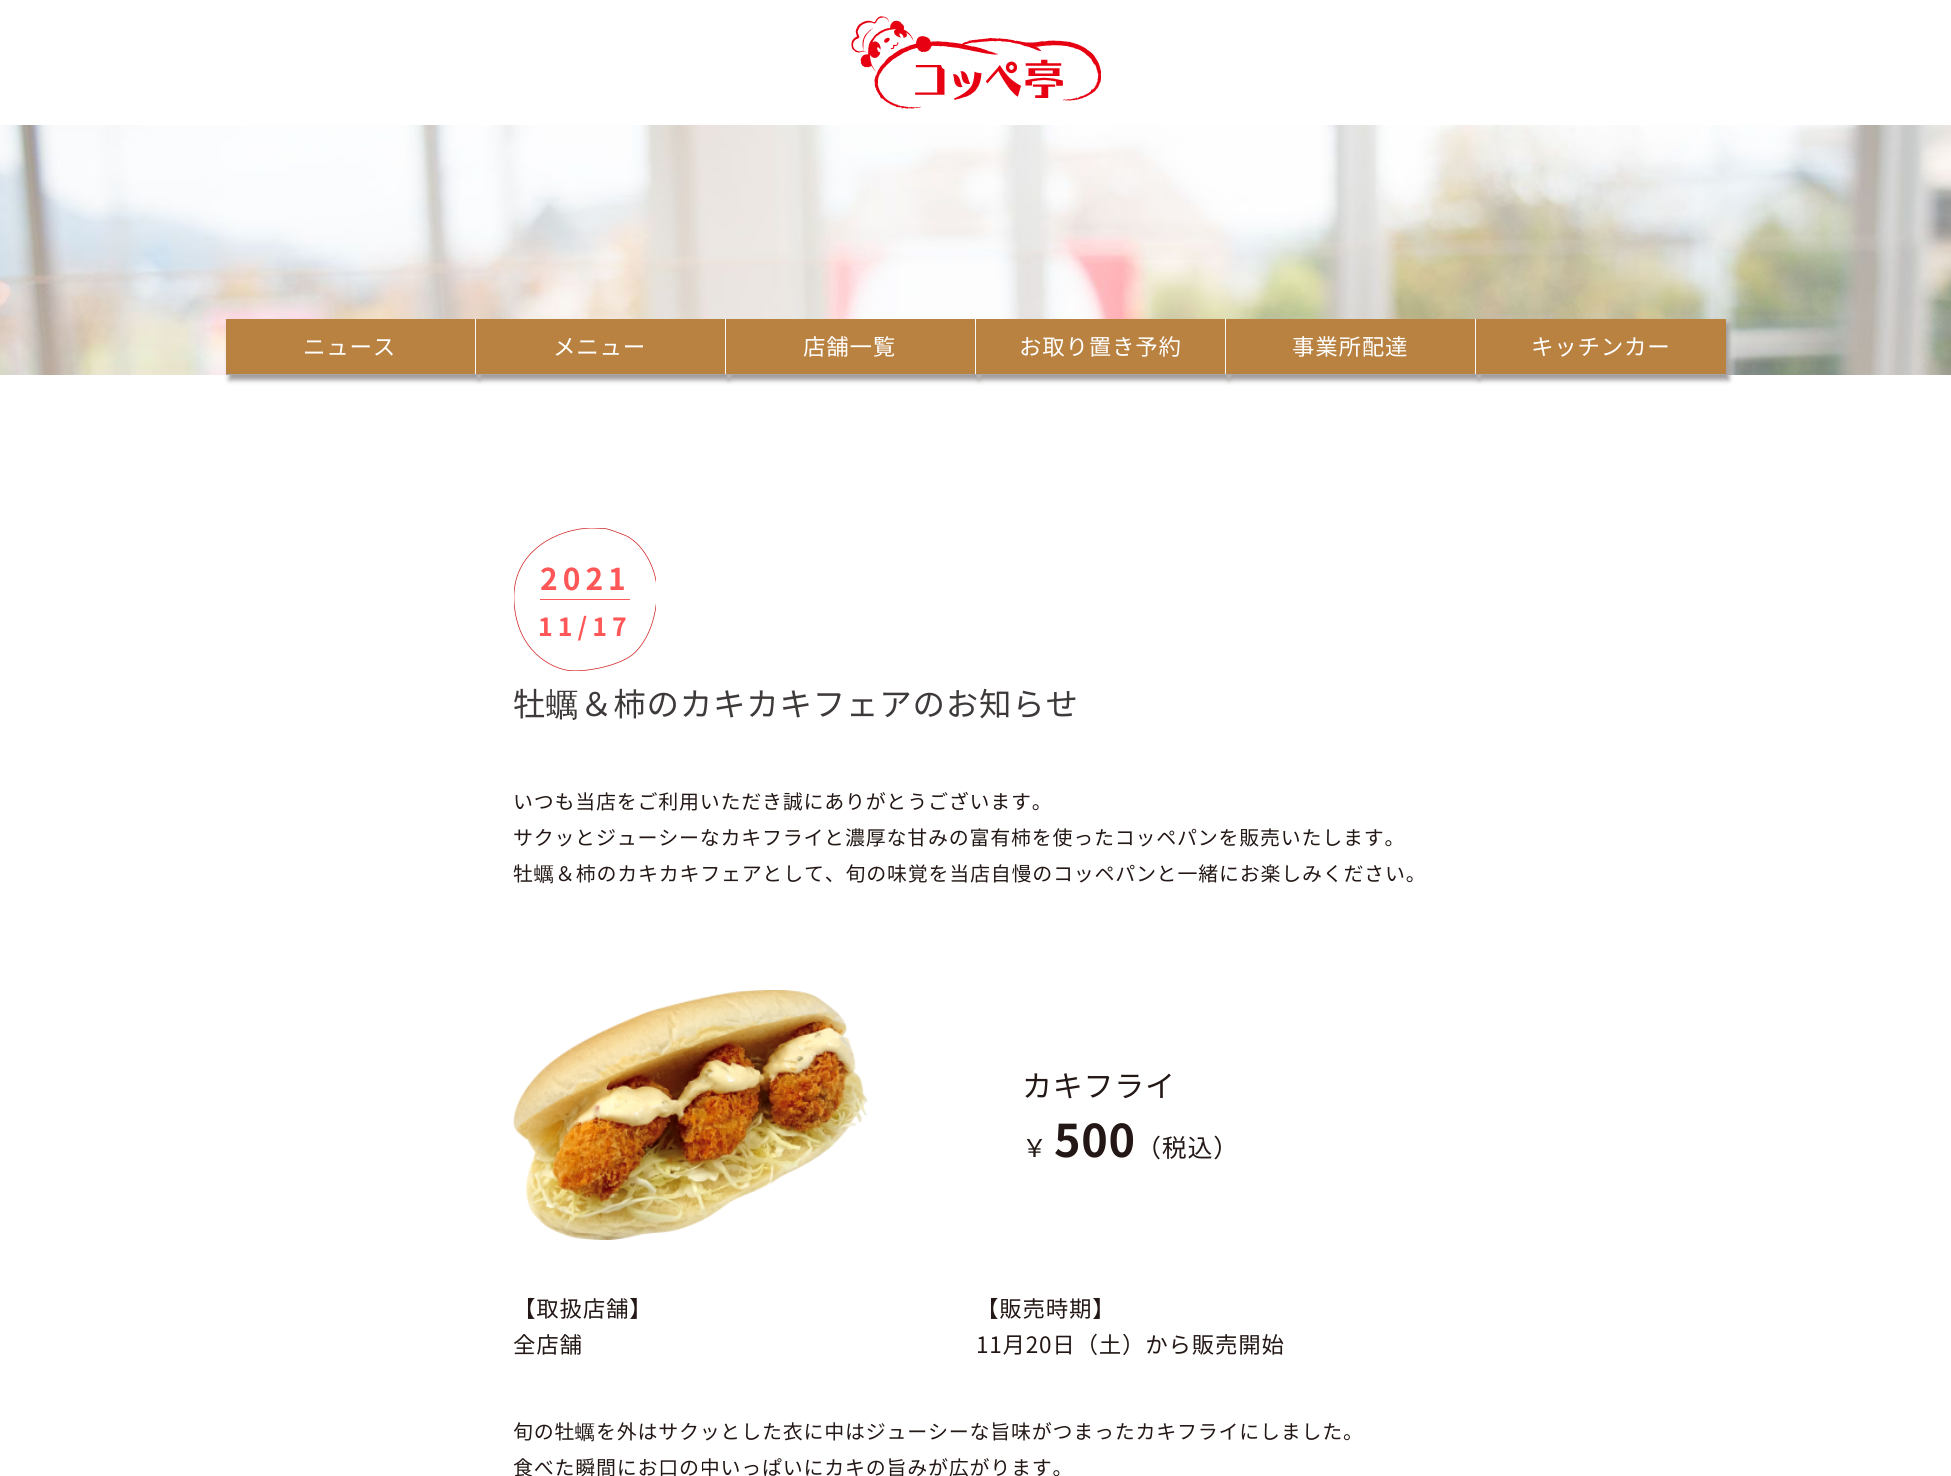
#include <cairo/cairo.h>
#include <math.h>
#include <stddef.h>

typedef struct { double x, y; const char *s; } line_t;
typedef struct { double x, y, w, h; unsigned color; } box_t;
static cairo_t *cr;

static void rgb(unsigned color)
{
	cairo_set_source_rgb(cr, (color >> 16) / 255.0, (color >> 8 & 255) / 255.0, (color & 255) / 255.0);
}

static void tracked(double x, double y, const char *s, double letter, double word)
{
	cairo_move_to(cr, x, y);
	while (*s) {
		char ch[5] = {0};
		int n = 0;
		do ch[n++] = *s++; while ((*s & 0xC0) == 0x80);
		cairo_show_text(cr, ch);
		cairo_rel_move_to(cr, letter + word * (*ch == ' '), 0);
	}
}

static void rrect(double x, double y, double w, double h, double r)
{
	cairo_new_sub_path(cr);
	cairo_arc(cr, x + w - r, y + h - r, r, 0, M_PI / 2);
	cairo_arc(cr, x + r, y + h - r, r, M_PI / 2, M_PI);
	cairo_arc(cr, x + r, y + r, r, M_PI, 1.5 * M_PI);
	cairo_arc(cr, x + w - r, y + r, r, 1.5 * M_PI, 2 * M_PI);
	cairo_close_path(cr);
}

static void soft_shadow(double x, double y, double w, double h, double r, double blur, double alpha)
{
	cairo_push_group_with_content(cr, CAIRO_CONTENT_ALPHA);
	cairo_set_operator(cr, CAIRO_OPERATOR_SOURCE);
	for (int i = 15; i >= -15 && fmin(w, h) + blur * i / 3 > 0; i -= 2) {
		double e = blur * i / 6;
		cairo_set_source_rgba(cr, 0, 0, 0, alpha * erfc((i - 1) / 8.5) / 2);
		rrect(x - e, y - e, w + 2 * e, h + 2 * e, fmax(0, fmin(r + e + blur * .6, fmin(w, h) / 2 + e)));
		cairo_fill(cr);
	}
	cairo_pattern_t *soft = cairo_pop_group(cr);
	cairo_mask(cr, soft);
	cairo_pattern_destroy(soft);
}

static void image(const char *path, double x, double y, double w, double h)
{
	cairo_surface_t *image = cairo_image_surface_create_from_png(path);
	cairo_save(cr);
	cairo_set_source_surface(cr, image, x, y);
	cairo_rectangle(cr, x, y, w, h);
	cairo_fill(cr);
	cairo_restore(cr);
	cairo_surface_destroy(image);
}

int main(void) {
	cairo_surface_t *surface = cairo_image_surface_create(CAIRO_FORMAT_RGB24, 1951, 1476);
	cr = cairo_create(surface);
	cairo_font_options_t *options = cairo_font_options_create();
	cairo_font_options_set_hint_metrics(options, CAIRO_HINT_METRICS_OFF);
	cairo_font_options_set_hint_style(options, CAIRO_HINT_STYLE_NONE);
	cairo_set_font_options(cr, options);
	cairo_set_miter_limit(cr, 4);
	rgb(0xffffff);
	cairo_paint(cr);
	image("img/1.png", 0, 125, 1951, 250);
	image("img/2.png", 851, 16, 250, 93);
	rgb(0x9d9999);
	soft_shadow(229, 324, 250, 56, 0, 2.5, 1);
	rgb(0xffffff);
	cairo_rectangle(cr, 475, 319, 1, 56);
	cairo_fill(cr);
	rgb(0xa7a7a7);
	cairo_rectangle(cr, 226, 374, 250, 1);
	cairo_fill(cr);
	rgb(0x9d9999);
	soft_shadow(479, 324, 250, 56, 0, 2.5, 1);
	{
		static const box_t items[] = {
			{226, 319, 249, 55, 0xb98241},
			{725, 319, 1, 56, 0xffffff},
			{476, 374, 250, 1, 0xa7a7a7},
		};
		for (size_t i = 0; i < sizeof items / sizeof *items; i++) {
			rgb(items[i].color);
			cairo_rectangle(cr, items[i].x, items[i].y, items[i].w, items[i].h);
			cairo_fill(cr);
		}
	}
	rgb(0x9d9999);
	soft_shadow(729, 324, 250, 56, 0, 2.5, 1);
	{
		static const box_t items[] = {
			{476, 319, 249, 55, 0xb98241},
			{975, 319, 1, 56, 0xffffff},
			{726, 374, 250, 1, 0xa7a7a7},
		};
		for (size_t i = 0; i < sizeof items / sizeof *items; i++) {
			rgb(items[i].color);
			cairo_rectangle(cr, items[i].x, items[i].y, items[i].w, items[i].h);
			cairo_fill(cr);
		}
	}
	rgb(0x9d9999);
	soft_shadow(979, 324, 250, 56, 0, 2.5, 1);
	{
		static const box_t items[] = {
			{726, 319, 249, 55, 0xb98241},
			{1225, 319, 1, 56, 0xffffff},
			{976, 374, 250, 1, 0xa7a7a7},
		};
		for (size_t i = 0; i < sizeof items / sizeof *items; i++) {
			rgb(items[i].color);
			cairo_rectangle(cr, items[i].x, items[i].y, items[i].w, items[i].h);
			cairo_fill(cr);
		}
	}
	rgb(0x9d9999);
	soft_shadow(1229, 324, 250, 56, 0, 2.5, 1);
	{
		static const box_t items[] = {
			{976, 319, 249, 55, 0xb98241},
			{1475, 319, 1, 56, 0xffffff},
			{1226, 374, 250, 1, 0xa7a7a7},
		};
		for (size_t i = 0; i < sizeof items / sizeof *items; i++) {
			rgb(items[i].color);
			cairo_rectangle(cr, items[i].x, items[i].y, items[i].w, items[i].h);
			cairo_fill(cr);
		}
	}
	rgb(0x9d9999);
	soft_shadow(1479, 324, 250, 56, 0, 2.5, 1);
	{
		static const box_t items[] = {
			{1226, 319, 249, 55, 0xb98241},
			{1476, 374, 250, 1, 0xa7a7a7},
			{1476, 319, 250, 55, 0xb98241},
		};
		for (size_t i = 0; i < sizeof items / sizeof *items; i++) {
			rgb(items[i].color);
			cairo_rectangle(cr, items[i].x, items[i].y, items[i].w, items[i].h);
			cairo_fill(cr);
		}
	}
	cairo_save(cr);
	cairo_rectangle(cr, 514, 528, 142, 143);
	cairo_clip(cr);
	cairo_new_path(cr);
	cairo_move_to(cr, 591.5, 528);
	cairo_curve_to(cr, 558.5, 528.5, 511.5, 550.5, 514, 601);
	cairo_curve_to(cr, 516.5, 651.5, 552, 668.5, 569, 670.5);
	cairo_curve_to(cr, 585.5, 672.5, 622.5, 665.5, 635.5, 652);
	cairo_curve_to(cr, 649, 638, 656, 617.5, 657, 594.5);
	cairo_curve_to(cr, 658, 571.5, 644.5, 544.5, 625.5, 535.5);
	cairo_curve_to(cr, 616.5, 532, 610.5, 529.5, 605, 528.5);
	cairo_close_path(cr);
	rgb(0xcf1718);
	cairo_set_line_width(cr, 0.7);
	cairo_stroke(cr);
	cairo_restore(cr);
	rgb(0xff5757);
	cairo_rectangle(cr, 540, 599, 90, 1);
	cairo_fill(cr);
	image("img/3.png", 513, 990, 355, 250);
	cairo_select_font_face(cr, "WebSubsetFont", CAIRO_FONT_SLANT_NORMAL, CAIRO_FONT_WEIGHT_NORMAL);
	cairo_set_font_size(cr, 22.5);
	rgb(0xffffff);
	{
		static const line_t items[] = {
			{303, 355, "ニュース"},
			{553, 355, "メニュー"},
			{803, 355, "店舗一覧"},
			{1019, 355, "お取り置き予約"},
			{1292, 355, "事業所配達"},
			{1531, 355, "キッチンカー"},
		};
		for (size_t i = 0; i < sizeof items / sizeof *items; i++) {
			tracked(items[i].x, items[i].y, items[i].s, 0.75, 0);
		}
	}
	cairo_select_font_face(cr, "Noto Sans CJK JP", CAIRO_FONT_SLANT_NORMAL, CAIRO_FONT_WEIGHT_BOLD);
	cairo_set_font_size(cr, 30);
	rgb(0xff5757);
	tracked(540, 590, "2021", 5, 0);
	cairo_set_font_size(cr, 25);
	tracked(538, 636, "11/17", 5, 0);
	cairo_select_font_face(cr, "WebSubsetFont", CAIRO_FONT_SLANT_NORMAL, CAIRO_FONT_WEIGHT_NORMAL);
	cairo_set_font_size(cr, 32.5);
	rgb(0x3e3a39);
	tracked(513, 716, "牡", 0.75, 0);
	cairo_select_font_face(cr, "WenQuanYi Zen Hei Medium", CAIRO_FONT_SLANT_NORMAL, CAIRO_FONT_WEIGHT_NORMAL);
	tracked(546, 716, "蠣", 0.75, 0);
	cairo_select_font_face(cr, "WebSubsetFont", CAIRO_FONT_SLANT_NORMAL, CAIRO_FONT_WEIGHT_NORMAL);
	tracked(580, 716, "＆柿のカキカキフェアのお知らせ", 0.75, 0);
	cairo_set_font_size(cr, 20);
	rgb(0x231815);
	{
		static const line_t items[] = {
			{513, 809, "いつも当店をご利用いただき誠にありがとうございます。"},
			{513, 845, "サクッとジューシーなカキフライと濃厚な甘みの富有柿を使ったコッペパンを販売いたします。"},
			{513, 881, "牡"},
		};
		for (size_t i = 0; i < sizeof items / sizeof *items; i++) {
			tracked(items[i].x, items[i].y, items[i].s, 0.75, 0);
		}
	}
	cairo_select_font_face(cr, "WenQuanYi Zen Hei Medium", CAIRO_FONT_SLANT_NORMAL, CAIRO_FONT_WEIGHT_NORMAL);
	tracked(534, 881, "蠣", 0.75, 0);
	cairo_select_font_face(cr, "WebSubsetFont", CAIRO_FONT_SLANT_NORMAL, CAIRO_FONT_WEIGHT_NORMAL);
	tracked(555, 881, "＆柿のカキカキフェアとして、旬の味覚を当店自慢のコッペパンと一緒にお楽しみください。", 0.75, 0);
	cairo_set_font_size(cr, 30);
	tracked(1022, 1097, "カキフライ", 0.75, 0);
	cairo_set_font_size(cr, 25);
	tracked(1022, 1157, "￥", 0.75, 0);
	cairo_select_font_face(cr, "Noto Sans CJK JP", CAIRO_FONT_SLANT_NORMAL, CAIRO_FONT_WEIGHT_BOLD);
	cairo_set_font_size(cr, 45);
	tracked(1054, 1157, "500", 0.75, 0);
	cairo_select_font_face(cr, "WebSubsetFont", CAIRO_FONT_SLANT_NORMAL, CAIRO_FONT_WEIGHT_NORMAL);
	cairo_set_font_size(cr, 25);
	tracked(1136, 1157, "（税込）", 0.75, 0);
	cairo_set_font_size(cr, 22.5);
	{
		static const line_t items[] = {
			{513, 1317, "【取扱店舗】"},
			{513, 1353, "全店舗"},
			{976, 1317, "【販売時期】"},
			{976, 1353, "11月20日（土）から販売開始"},
		};
		for (size_t i = 0; i < sizeof items / sizeof *items; i++) {
			tracked(items[i].x, items[i].y, items[i].s, 0.75, 0);
		}
	}
	cairo_set_font_size(cr, 20);
	tracked(513, 1439, "旬の牡", 0.75, 0);
	cairo_select_font_face(cr, "WenQuanYi Zen Hei Medium", CAIRO_FONT_SLANT_NORMAL, CAIRO_FONT_WEIGHT_NORMAL);
	tracked(575, 1439, "蠣", 0.75, 0);
	cairo_select_font_face(cr, "WebSubsetFont", CAIRO_FONT_SLANT_NORMAL, CAIRO_FONT_WEIGHT_NORMAL);
	tracked(596, 1439, "を外はサクッとした衣に中はジューシーな旨味がつまったカキフライにしました。", 0.75, 0);
	tracked(513, 1475, "食べた瞬間にお口の中いっぱいにカキの旨みが広がります。", 0.75, 0);
	cairo_surface_write_to_png(surface, "page.png");
	cairo_font_options_destroy(options);
	cairo_destroy(cr);
	cairo_surface_destroy(surface);
	return 0;
}
